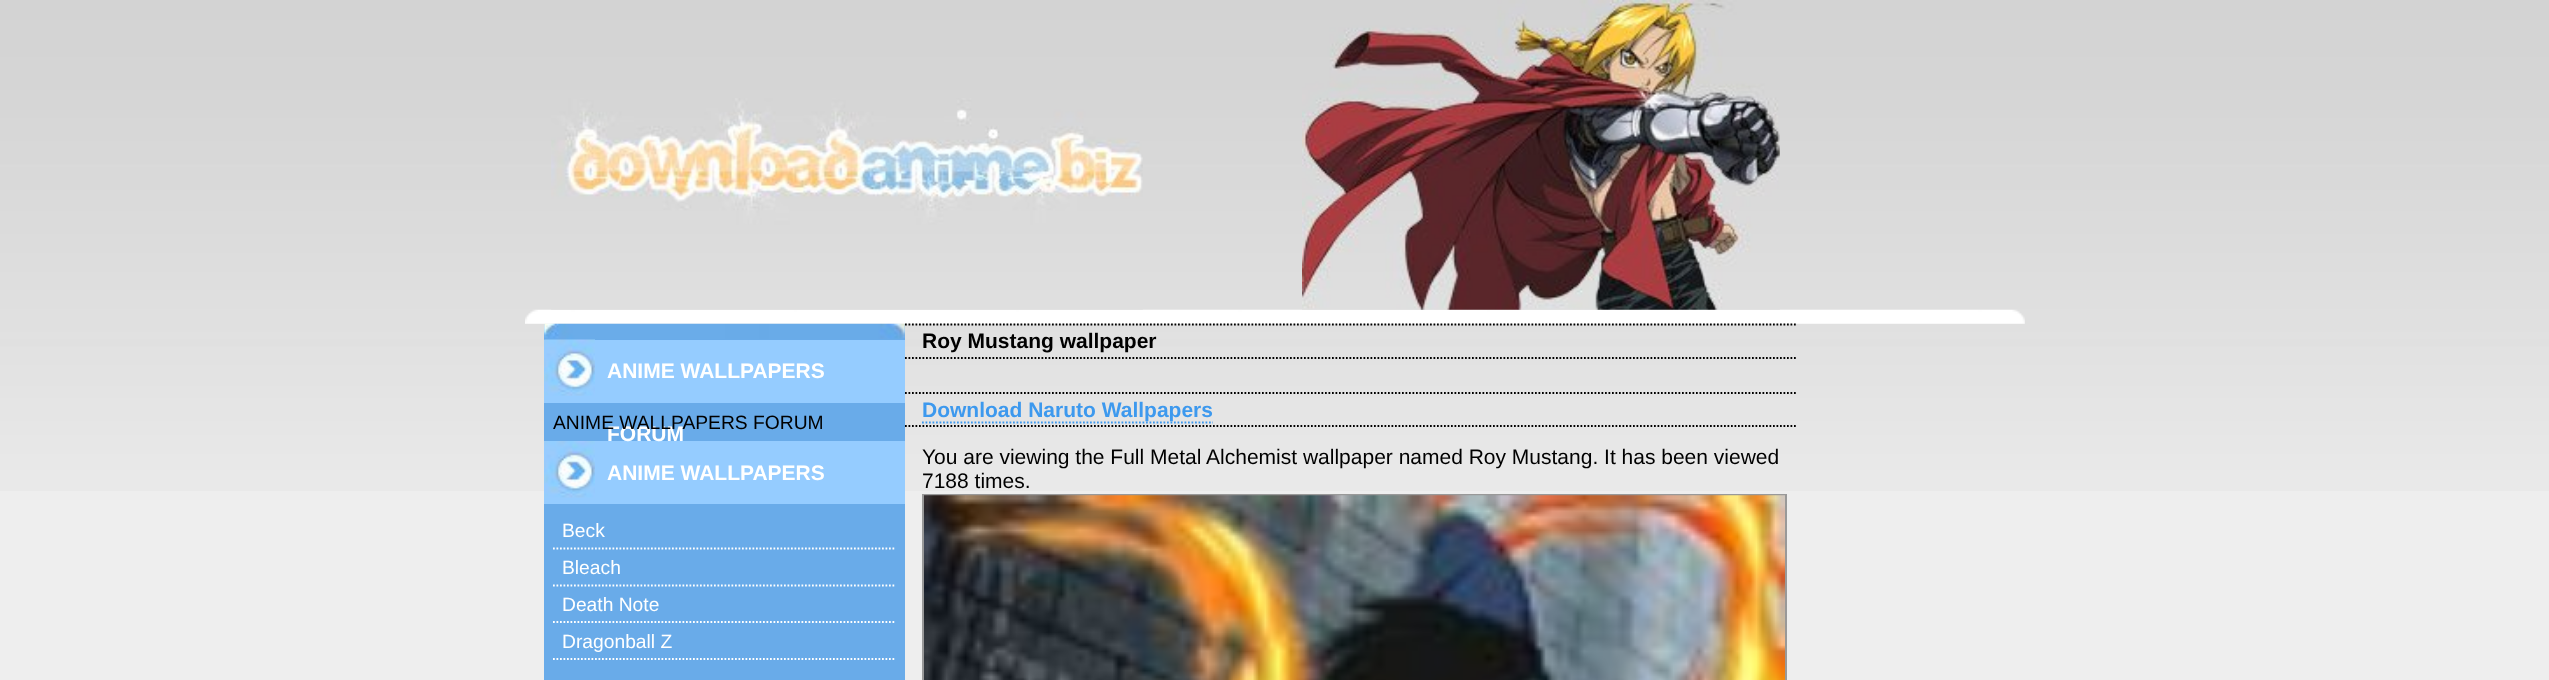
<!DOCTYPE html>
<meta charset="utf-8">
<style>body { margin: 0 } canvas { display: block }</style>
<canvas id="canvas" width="2549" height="680"></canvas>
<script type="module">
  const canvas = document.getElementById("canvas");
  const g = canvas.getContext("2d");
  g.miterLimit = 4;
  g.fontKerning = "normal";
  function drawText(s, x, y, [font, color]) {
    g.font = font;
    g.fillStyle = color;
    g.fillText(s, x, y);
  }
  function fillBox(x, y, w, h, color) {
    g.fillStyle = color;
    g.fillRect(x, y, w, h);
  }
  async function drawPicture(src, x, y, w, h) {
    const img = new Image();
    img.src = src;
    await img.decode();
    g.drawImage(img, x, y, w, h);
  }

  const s1 = ["bold 21px Liberation Sans", "#FFFFFF"];
  const s2 = ["19.25px Liberation Sans", "#000000"];
  const s3 = ["19.25px Liberation Sans", "#FFFFFF"];
  const s4 = ["bold 21px Liberation Sans", "#000000"];
  const s5 = ["bold 21px Liberation Sans", "#3D99EE"];
  const s6 = ["21px Liberation Sans", "#000000"];

  fillBox(0, 0, 2549, 680, "#EEEEEE");
  await drawPicture("pic1.png", 0, 0, 2549, 491);
  await drawPicture("pic4.png", 525, 309, 1500, 15);
  await drawPicture("pic2.png", 551, 98, 592, 212);
  await drawPicture("pic3.png", 1302, 0, 478, 310);
  fillBox(544, 324, 361, 356, "#69ABE9");
  await drawPicture("pic5.png", 544, 323, 361, 16);
  fillBox(544, 340, 361, 63, "#95CCFF");
  await drawPicture("pic6.png", 544, 339, 51, 57);
  drawText("ANIME WALLPAPERS", 607, 378, s1);
  fillBox(544, 441, 361, 63, "#95CCFF");
  drawText("FORUM", 607, 441, s1);
  drawText("ANIME WALLPAPERS FORUM", 553, 429, s2);
  await drawPicture("pic7.png", 544, 441, 51, 57);
  drawText("ANIME WALLPAPERS", 607, 480, s1);
  g.beginPath();
  g.moveTo(553, 548.5);
  g.lineTo(896, 548.5);
  g.strokeStyle = "#FFFFFF";
  g.lineWidth = 1.8;
  g.setLineDash([1.75, 1.75]);
  g.stroke();
  drawText("Beck", 562, 537, s3);
  g.beginPath();
  g.moveTo(553, 585.5);
  g.lineTo(896, 585.5);
  g.stroke();
  drawText("Bleach", 562, 574, s3);
  g.beginPath();
  g.moveTo(553, 622);
  g.lineTo(896, 622);
  g.stroke();
  drawText("Death Note", 562, 611, s3);
  g.beginPath();
  g.moveTo(553, 659);
  g.lineTo(896, 659);
  g.stroke();
  drawText("Dragonball Z", 562, 648, s3);
  g.beginPath();
  g.moveTo(905, 324.5);
  g.lineTo(1797, 324.5);
  g.strokeStyle = "#000000";
  g.stroke();
  g.beginPath();
  g.moveTo(905, 358);
  g.lineTo(1797, 358);
  g.stroke();
  drawText("Roy Mustang wallpaper", 922, 348, s4);
  g.beginPath();
  g.moveTo(905, 393);
  g.lineTo(1797, 393);
  g.stroke();
  g.beginPath();
  g.moveTo(905, 426);
  g.lineTo(1797, 426);
  g.stroke();
  g.beginPath();
  g.moveTo(922, 422.5);
  g.lineTo(1213, 422.5);
  g.strokeStyle = "#3D99EE";
  g.stroke();
  drawText("Download Naruto Wallpapers", 922, 417, s5);
  drawText("You are viewing the Full Metal Alchemist wallpaper named Roy Mustang. It has been viewed", 922, 464, s6);
  drawText("7188 times.", 922, 488, s6);
  g.strokeStyle = "#999999";
  g.lineWidth = 2;
  g.setLineDash([]);
  g.strokeRect(923, 495, 863, 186);
  await drawPicture("pic8.png", 924, 495, 861, 185);
</script>
